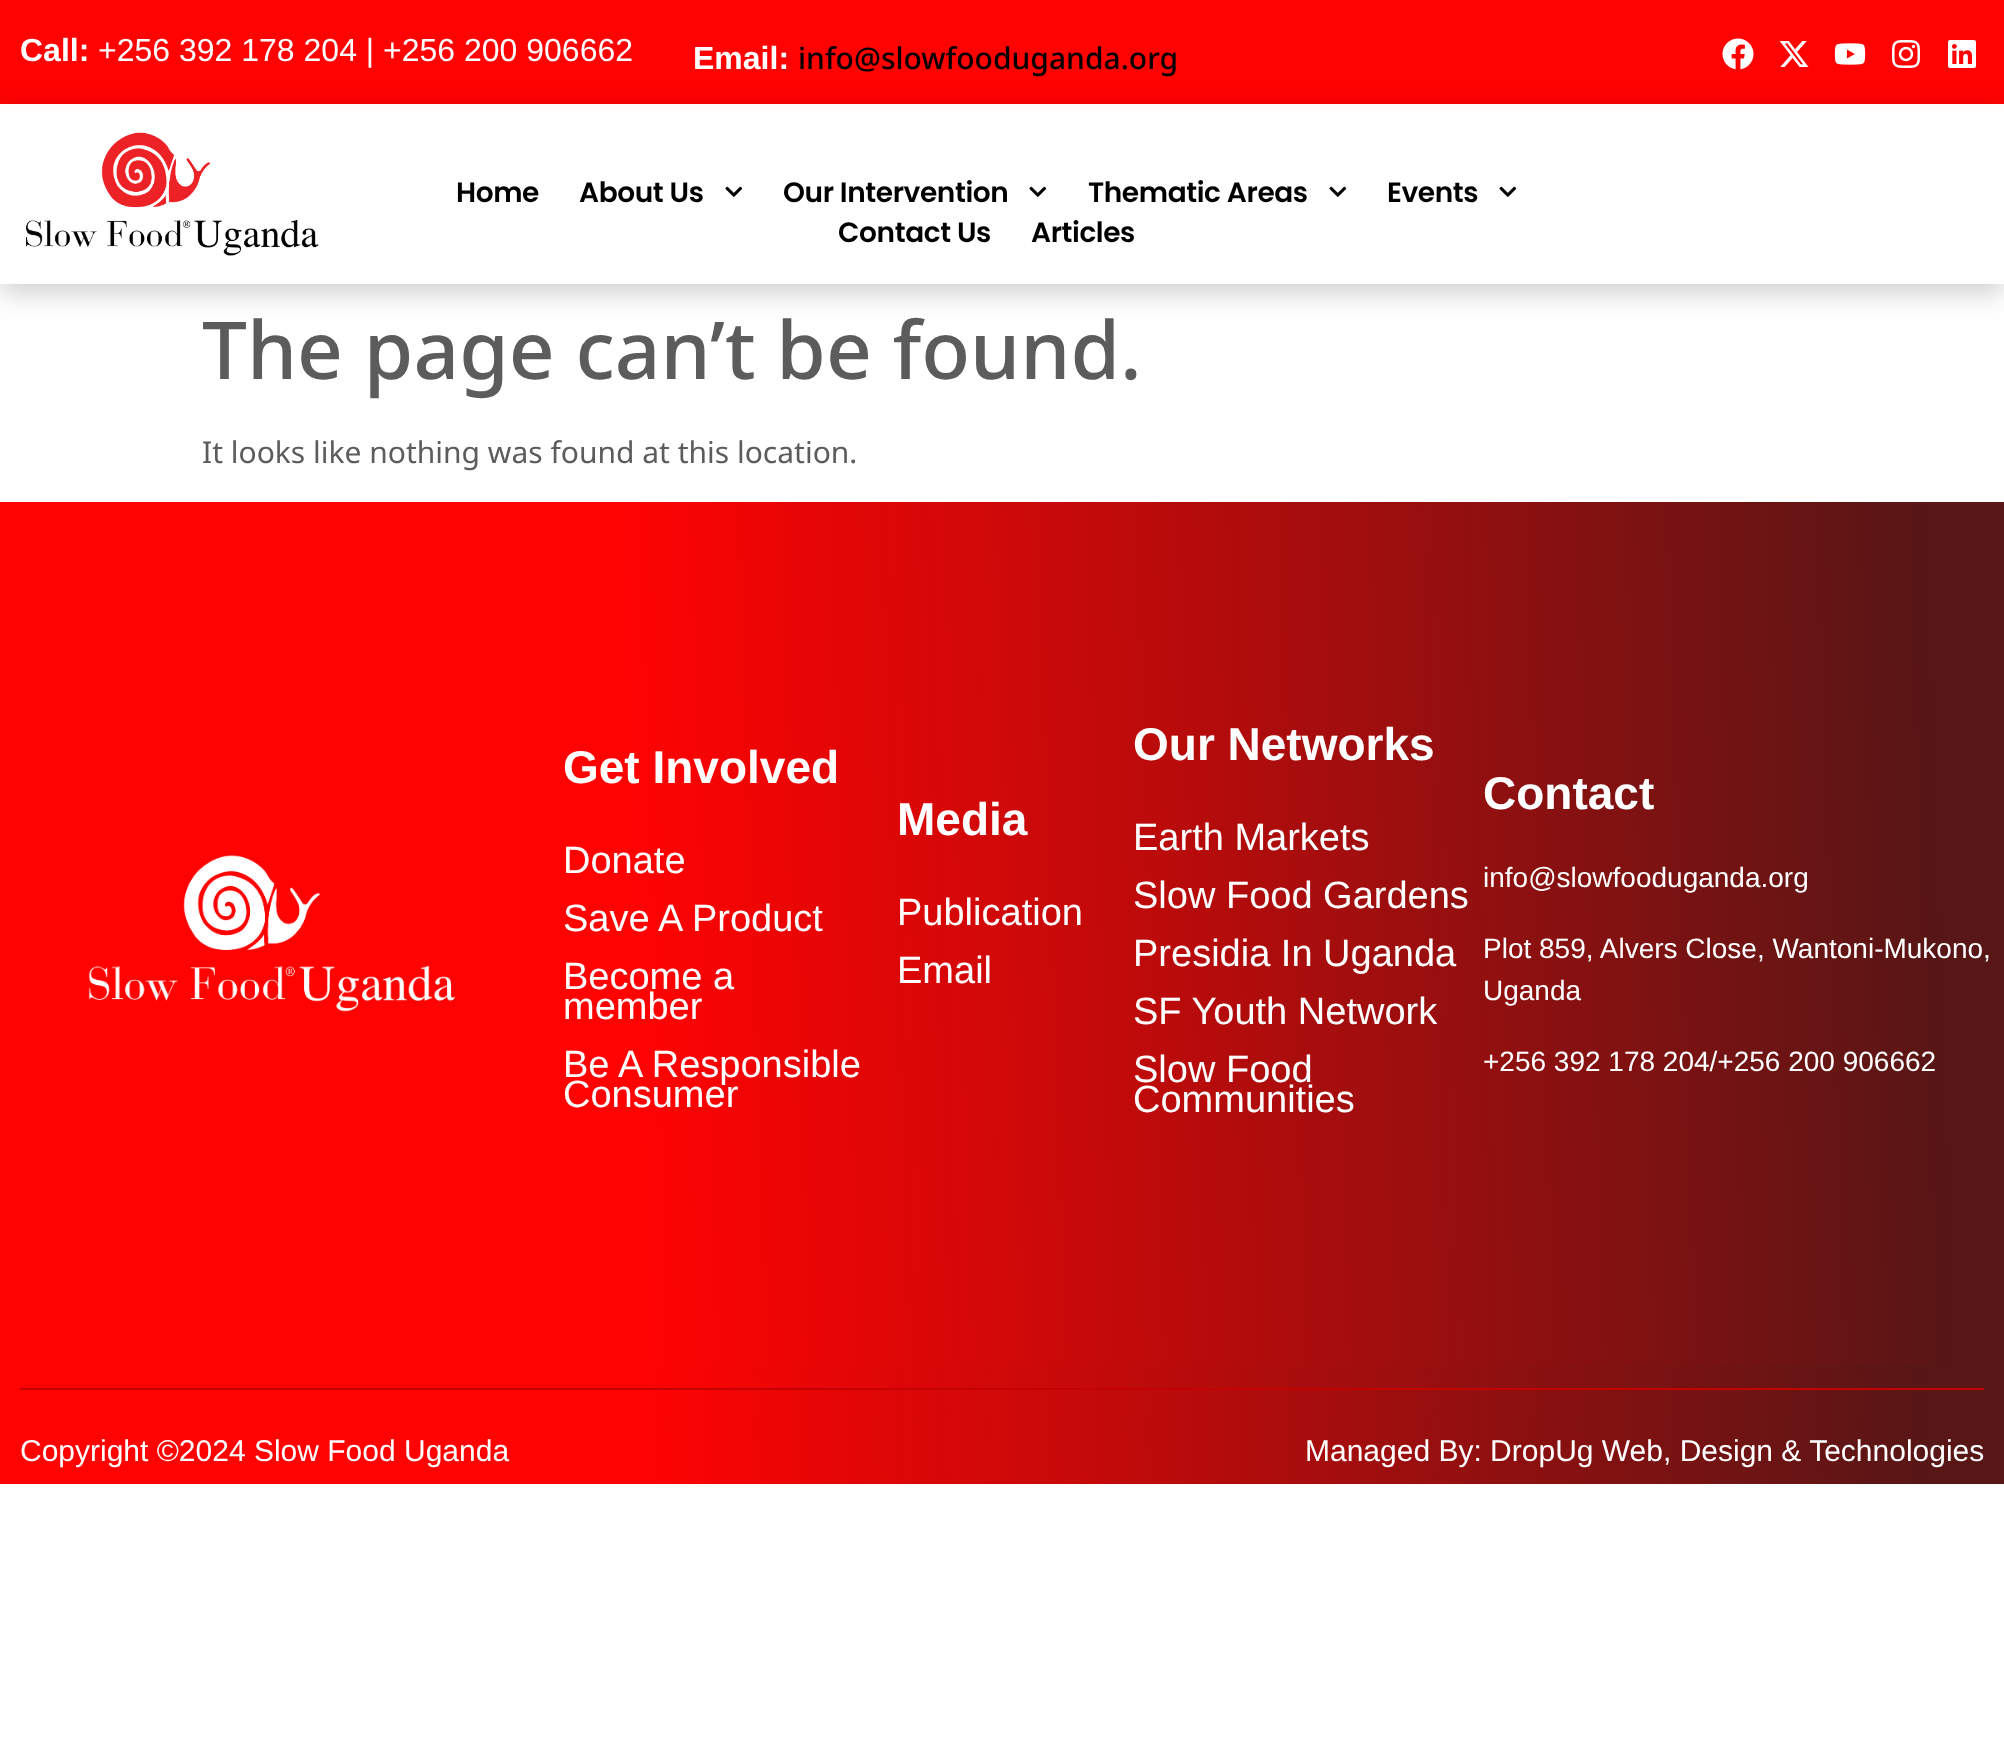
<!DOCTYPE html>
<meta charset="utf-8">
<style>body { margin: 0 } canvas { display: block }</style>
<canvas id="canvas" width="2004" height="1745"></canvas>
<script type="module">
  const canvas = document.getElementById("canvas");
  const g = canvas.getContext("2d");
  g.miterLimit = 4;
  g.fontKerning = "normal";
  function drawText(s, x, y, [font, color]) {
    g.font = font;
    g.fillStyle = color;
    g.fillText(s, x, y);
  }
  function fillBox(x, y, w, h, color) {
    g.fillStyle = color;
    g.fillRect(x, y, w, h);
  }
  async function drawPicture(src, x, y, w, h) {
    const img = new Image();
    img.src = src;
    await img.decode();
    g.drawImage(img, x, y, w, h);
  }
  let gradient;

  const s1 = ["bold 32px Liberation Sans", "#FFFFFF"];
  const s2 = ["32px Liberation Sans", "#FFFFFF"];
  const s3 = ["500 30px Noto Sans", "#000000"];
  const s4 = ["600 28px Poppins", "#000000"];
  const s5 = ["500 80px Noto Sans", "#5C5C5C"];
  const s6 = ["30px Noto Sans", "#5C5C5C"];
  const s7 = ["bold 46px Liberation Sans", "#FFFFFF"];
  const s8 = ["38px Liberation Sans", "#FFFFFF"];
  const s9 = ["28px Liberation Sans", "#FFFFFF"];
  const s10 = ["30px Liberation Sans", "#FFFFFF"];

  fillBox(0, 0, 2004, 1745, "#FFFFFF");
  fillBox(0, 0, 2004, 104, "#FF0303");
  fillBox(0, 104, 2004, 6, "#FFFCFC");
  drawText("Call:", 20, 61, s1);
  drawText("+256 392 178 204 | +256 200 906662", 98, 61, s2);
  drawText("Email:", 693, 69, s1);
  drawText("info@slowfooduganda.org", 798, 69, s3);
  await drawPicture("pic1.png", 1722, 38, 32, 32);
  await drawPicture("pic2.png", 1779, 41, 30, 26);
  await drawPicture("pic3.png", 1834, 43, 32, 22);
  await drawPicture("pic4.png", 1892, 40, 28, 28);
  await drawPicture("pic5.png", 1948, 40, 28, 28);
  g.save();
  g.beginPath();
  g.moveTo(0, 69);
  g.lineTo(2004, 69);
  g.lineTo(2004, 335);
  g.lineTo(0, 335);
  g.closePath();
  g.moveTo(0, 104);
  g.lineTo(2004, 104);
  g.lineTo(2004, 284);
  g.lineTo(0, 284);
  g.closePath();
  g.clip("evenodd");
  g.fillStyle = "rgba(0, 0, 0, 0.2)";
  g.filter = "blur(14px)";
  g.beginPath();
  g.rect(0, 112, 2004, 180);
  g.fill();
  g.filter = "none";
  g.restore();
  await drawPicture("pic6.png", 26, 132, 293, 124);
  g.letterSpacing = "-0.4px";
  drawText("Home", 456, 202, s4);
  drawText("About Us", 579, 202, s4);
  await drawPicture("pic7.png", 725, 186, 17, 11);
  drawText("Our Intervention", 783, 202, s4);
  await drawPicture("pic8.png", 1029, 186, 18, 11);
  drawText("Thematic Areas", 1088, 202, s4);
  await drawPicture("pic8.png", 1329, 186, 18, 11);
  drawText("Events", 1387, 202, s4);
  await drawPicture("pic8.png", 1499, 186, 18, 11);
  drawText("Contact Us", 838, 242, s4);
  drawText("Articles", 1031, 242, s4);
  g.letterSpacing = "0px";
  drawText("The page can’t be found.", 202, 379, s5);
  drawText("It looks like nothing was found at this location.", 202, 463, s6);
  gradient = g.createLinearGradient(-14, 968, 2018, 898);
  gradient.addColorStop(0.32, "#FF0303");
  gradient.addColorStop(0.96, "#581616");
  g.fillStyle = gradient;
  g.fillRect(0, 502, 2004, 862);
  await drawPicture("pic9.png", 88, 855, 368, 157);
  drawText("Get Involved", 563, 783, s7);
  drawText("Donate", 563, 873, s8);
  drawText("Save A Product", 563, 931, s8);
  drawText("Become a", 563, 989, s8);
  drawText("member", 563, 1019, s8);
  drawText("Be A Responsible", 563, 1077, s8);
  drawText("Consumer", 563, 1107, s8);
  drawText("Media", 897, 835, s7);
  drawText("Publication", 897, 925, s8);
  drawText("Email", 897, 983, s8);
  drawText("Our Networks", 1133, 760, s7);
  drawText("Earth Markets", 1133, 850, s8);
  drawText("Slow Food Gardens", 1133, 908, s8);
  drawText("Presidia In Uganda", 1133, 966, s8);
  drawText("SF Youth Network", 1133, 1024, s8);
  drawText("Slow Food", 1133, 1082, s8);
  drawText("Communities", 1133, 1112, s8);
  drawText("Contact", 1483, 809, s7);
  drawText("info@slowfooduganda.org", 1483, 887, s9);
  drawText("Plot 859, Alvers Close, Wantoni-Mukono,", 1483, 958, s9);
  drawText("Uganda", 1483, 1000, s9);
  drawText("+256 392 178 204/+256 200 906662", 1483, 1071, s9);
  gradient = g.createLinearGradient(0.3, 1424, 2004, 1354);
  gradient.addColorStop(0.32, "#FF0303");
  gradient.addColorStop(0.96, "#581616");
  g.fillStyle = gradient;
  g.fillRect(0, 1364, 2004, 50);
  fillBox(20, 1388, 1964, 2, "#C40202");
  gradient = g.createLinearGradient(0, 1484, 2004, 1414);
  gradient.addColorStop(0.32, "#FF0303");
  gradient.addColorStop(0.96, "#581616");
  g.fillStyle = gradient;
  g.fillRect(0, 1414, 2004, 70);
  drawText("Copyright ©2024 Slow Food Uganda", 20, 1461, s10);
  drawText("Managed By: DropUg Web, Design & Technologies", 1305, 1461, s10);
</script>
